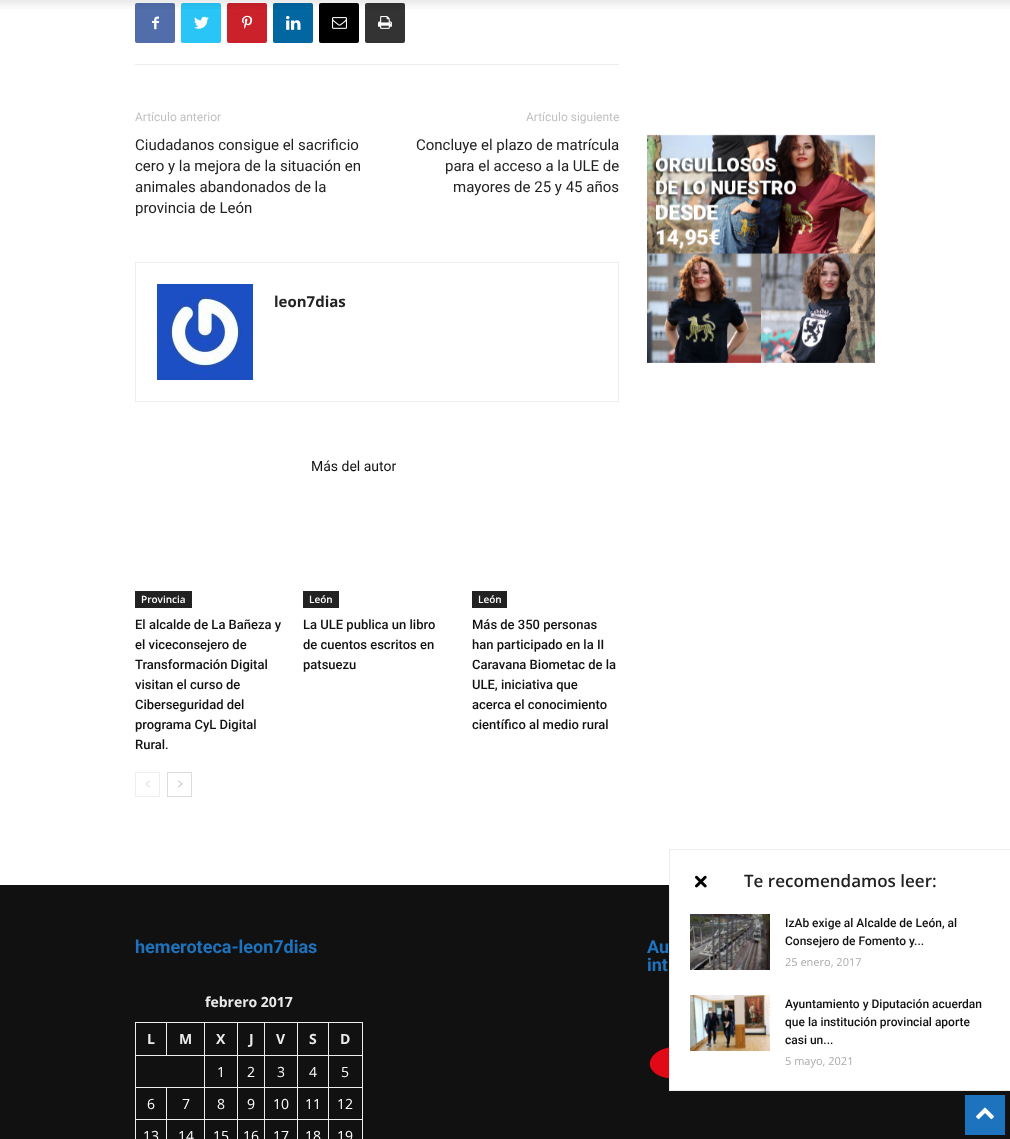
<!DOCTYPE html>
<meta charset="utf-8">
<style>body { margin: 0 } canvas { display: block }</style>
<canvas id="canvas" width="1010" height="1139"></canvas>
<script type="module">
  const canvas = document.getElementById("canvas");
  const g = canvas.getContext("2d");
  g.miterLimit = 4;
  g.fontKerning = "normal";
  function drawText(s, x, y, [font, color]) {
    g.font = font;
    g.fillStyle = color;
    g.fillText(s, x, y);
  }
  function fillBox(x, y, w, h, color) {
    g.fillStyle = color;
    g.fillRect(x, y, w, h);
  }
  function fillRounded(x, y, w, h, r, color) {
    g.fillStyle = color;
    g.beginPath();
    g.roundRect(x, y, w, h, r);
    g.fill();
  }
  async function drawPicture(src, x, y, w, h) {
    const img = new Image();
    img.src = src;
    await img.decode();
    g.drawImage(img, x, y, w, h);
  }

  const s1 = ["12px Roboto", "#C1C1C1"];
  const s2 = ["15px Roboto", "#222222"];
  const s3 = ["bold 15px Open Sans", "#222222"];
  const s4 = ["14px Roboto", "#111111"];
  const s5 = ["600 10px Open Sans", "#FFFFFF"];
  const s6 = ["500 13px Roboto", "#111111"];
  const s7 = ["bold 18px Roboto", "#1E73BE"];
  const s8 = ["bold 14px Open Sans", "#EAEAEA"];
  const s9 = ["14px Open Sans", "#FFFFFF"];
  const s10 = ["600 17px Open Sans", "#222222"];
  const s11 = ["500 12px Roboto", "#111111"];
  const s12 = ["11px Open Sans", "#AAAAAA"];

  fillBox(0, 0, 1010, 1139, "#FFFFFF");
  fillRounded(135, 3, 40, 40, 2, "#516EAB");
  fillRounded(181, 3, 40, 40, 2, "#29C5F6");
  fillRounded(227, 3, 40, 40, 2, "#CA212A");
  fillRounded(273, 3, 40, 40, 2, "#0266A0");
  fillRounded(319, 3, 40, 40, 2, "#000000");
  fillRounded(365, 3, 40, 40, 2, "#333333");
  await drawPicture("pic1.png", 0, 0, 1010, 9);
  fillBox(135, 64, 484, 1, "#EDEDED");
  await drawPicture("pic2.png", 152, 16, 7, 14);
  await drawPicture("pic3.png", 194, 16, 15, 13);
  await drawPicture("pic4.png", 242, 15, 11, 14);
  await drawPicture("pic5.png", 286, 16, 15, 14);
  await drawPicture("pic6.png", 332, 17, 15, 12);
  await drawPicture("pic7.png", 378, 16, 14, 13);
  drawText("Artículo anterior", 135, 121, s1);
  drawText("Ciudadanos consigue el sacrificio", 135, 150, s2);
  drawText("cero y la mejora de la situación en", 135, 171, s2);
  drawText("animales abandonados de la", 135, 192, s2);
  drawText("provincia de León", 135, 213, s2);
  drawText("Artículo siguiente", 526, 121, s1);
  drawText("Concluye el plazo de matrícula", 416, 150, s2);
  drawText("para el acceso a la ULE de", 445, 171, s2);
  drawText("mayores de 25 y 45 años", 453, 192, s2);
  g.strokeStyle = "#EDEDED";
  g.strokeRect(135.5, 262.5, 483, 139);
  await drawPicture("pic8.png", 157, 284, 96, 96);
  drawText("leon7dias", 274, 307, s3);
  drawText("Más del autor", 311, 471, s4);
  fillBox(135, 591, 57, 17, "#222222");
  drawText("Provincia", 141, 603, s5);
  drawText("El alcalde de La Bañeza y", 135, 629, s6);
  drawText("el viceconsejero de", 135, 649, s6);
  drawText("Transformación Digital", 135, 669, s6);
  drawText("visitan el curso de", 135, 689, s6);
  drawText("Ciberseguridad del", 135, 709, s6);
  drawText("programa CyL Digital", 135, 729, s6);
  drawText("Rural.", 135, 749, s6);
  fillBox(303, 591, 36, 17, "#222222");
  drawText("León", 309, 603, s5);
  drawText("La ULE publica un libro", 303, 629, s6);
  drawText("de cuentos escritos en", 303, 649, s6);
  drawText("patsuezu", 303, 669, s6);
  fillBox(472, 591, 35, 17, "#222222");
  drawText("León", 478, 603, s5);
  drawText("Más de 350 personas", 472, 629, s6);
  drawText("han participado en la II", 472, 649, s6);
  drawText("Caravana Biometac de la", 472, 669, s6);
  drawText("ULE, iniciativa que", 472, 689, s6);
  drawText("acerca el conocimiento", 472, 709, s6);
  drawText("científico al medio rural", 472, 729, s6);
  g.strokeStyle = "#EEEEEE";
  g.strokeRect(135.5, 772.5, 24, 24);
  await drawPicture("pic9.png", 145, 780, 5, 8);
  g.strokeStyle = "#DCDCDC";
  g.strokeRect(167.5, 772.5, 24, 24);
  await drawPicture("pic10.png", 178, 780, 5, 8);
  await drawPicture("pic11.png", 647, 134, 228, 229);
  fillBox(0, 885, 1010, 254, "#111111");
  drawText("hemeroteca-leon7dias", 135, 953, s7);
  drawText("febrero 2017", 205, 1007, s8);
  fillBox(328, 1022, 35, 1, "#EDEDED");
  fillBox(328, 1055, 35, 1, "#EDEDED");
  fillBox(328, 1087, 35, 1, "#EDEDED");
  fillBox(328, 1119, 35, 1, "#EDEDED");
  fillBox(328, 1119, 1, 20, "#EDEDED");
  fillBox(297, 1119, 32, 1, "#EDEDED");
  fillBox(328, 1087, 1, 33, "#EDEDED");
  fillBox(297, 1087, 32, 1, "#EDEDED");
  fillBox(328, 1055, 1, 33, "#EDEDED");
  fillBox(297, 1055, 32, 1, "#EDEDED");
  fillBox(328, 1022, 1, 34, "#EDEDED");
  fillBox(297, 1022, 32, 1, "#EDEDED");
  fillBox(297, 1119, 1, 20, "#EDEDED");
  fillBox(264, 1119, 34, 1, "#EDEDED");
  fillBox(297, 1087, 1, 33, "#EDEDED");
  fillBox(264, 1087, 34, 1, "#EDEDED");
  fillBox(297, 1055, 1, 33, "#EDEDED");
  fillBox(264, 1055, 34, 1, "#EDEDED");
  fillBox(297, 1022, 1, 34, "#EDEDED");
  fillBox(264, 1022, 34, 1, "#EDEDED");
  fillBox(264, 1119, 1, 20, "#EDEDED");
  fillBox(237, 1119, 28, 1, "#EDEDED");
  fillBox(264, 1087, 1, 33, "#EDEDED");
  fillBox(237, 1087, 28, 1, "#EDEDED");
  fillBox(264, 1055, 1, 33, "#EDEDED");
  fillBox(237, 1055, 28, 1, "#EDEDED");
  fillBox(264, 1022, 1, 34, "#EDEDED");
  fillBox(237, 1022, 28, 1, "#EDEDED");
  fillBox(237, 1119, 1, 20, "#EDEDED");
  fillBox(204, 1119, 34, 1, "#EDEDED");
  fillBox(237, 1087, 1, 33, "#EDEDED");
  fillBox(204, 1087, 34, 1, "#EDEDED");
  fillBox(237, 1055, 1, 33, "#EDEDED");
  fillBox(204, 1055, 34, 1, "#EDEDED");
  fillBox(237, 1022, 1, 34, "#EDEDED");
  fillBox(204, 1022, 34, 1, "#EDEDED");
  fillBox(204, 1119, 1, 20, "#EDEDED");
  fillBox(166, 1119, 39, 1, "#EDEDED");
  fillBox(204, 1087, 1, 33, "#EDEDED");
  fillBox(166, 1087, 39, 1, "#EDEDED");
  fillBox(204, 1055, 1, 33, "#EDEDED");
  fillBox(135, 1055, 70, 1, "#EDEDED");
  fillBox(204, 1022, 1, 34, "#EDEDED");
  fillBox(166, 1022, 39, 1, "#EDEDED");
  fillBox(166, 1022, 1, 34, "#EDEDED");
  fillBox(135, 1022, 32, 1, "#EDEDED");
  fillBox(166, 1119, 1, 20, "#EDEDED");
  fillBox(135, 1119, 32, 1, "#EDEDED");
  fillBox(166, 1087, 1, 33, "#EDEDED");
  fillBox(135, 1087, 32, 1, "#EDEDED");
  fillBox(135, 1119, 1, 20, "#EDEDED");
  fillBox(135, 1087, 1, 33, "#EDEDED");
  fillBox(135, 1055, 1, 33, "#EDEDED");
  fillBox(135, 1022, 1, 34, "#EDEDED");
  drawText("L", 147, 1044, s8);
  drawText("M", 179, 1044, s8);
  drawText("X", 216, 1044, s8);
  drawText("J", 249, 1044, s8);
  drawText("V", 276, 1044, s8);
  drawText("S", 309, 1044, s8);
  fillBox(362, 1119, 1, 20, "#EDEDED");
  fillBox(362, 1087, 1, 33, "#EDEDED");
  fillBox(362, 1055, 1, 33, "#EDEDED");
  fillBox(362, 1022, 1, 34, "#EDEDED");
  drawText("D", 340, 1044, s8);
  drawText("1", 217, 1077, s9);
  drawText("2", 247, 1077, s9);
  drawText("3", 277, 1077, s9);
  drawText("4", 309, 1077, s9);
  drawText("5", 341, 1077, s9);
  drawText("6", 147, 1109, s9);
  drawText("7", 182, 1109, s9);
  drawText("8", 217, 1109, s9);
  drawText("9", 247, 1109, s9);
  drawText("10", 273, 1109, s9);
  drawText("11", 305, 1109, s9);
  drawText("12", 337, 1109, s9);
  drawText("13", 143, 1141, s9);
  drawText("14", 178, 1141, s9);
  drawText("15", 213, 1141, s9);
  drawText("16", 243, 1141, s9);
  drawText("17", 273, 1141, s9);
  drawText("18", 305, 1141, s9);
  drawText("19", 337, 1141, s9);
  drawText("Au", 647, 953, s7);
  drawText("int", 647, 971, s7);
  await drawPicture("pic12.png", 649, 1047, 20, 32);
  fillBox(670, 885, 340, 205, "#FFFFFF");
  fillBox(669, 849, 341, 1, "#EDEDED");
  fillBox(669, 1090, 341, 1, "#EDEDED");
  fillBox(669, 849, 1, 242, "#EDEDED");
  await drawPicture("pic13.png", 695, 875, 12, 13);
  drawText("Te recomendamos leer:", 744, 887, s10);
  await drawPicture("pic14.png", 690, 914, 80, 56);
  drawText("IzAb exige al Alcalde de León, al", 785, 927, s11);
  drawText("Consejero de Fomento y...", 785, 945, s11);
  drawText("25 enero, 2017", 785, 966, s12);
  await drawPicture("pic15.png", 690, 995, 80, 56);
  drawText("Ayuntamiento y Diputación acuerdan", 785, 1008, s11);
  drawText("que la institución provincial aporte", 785, 1026, s11);
  drawText("casi un...", 785, 1044, s11);
  drawText("5 mayo, 2021", 785, 1065, s12);
  fillBox(965, 1095, 40, 40, "#1E73BE");
  await drawPicture("pic16.png", 976, 1107, 18, 13);
</script>
